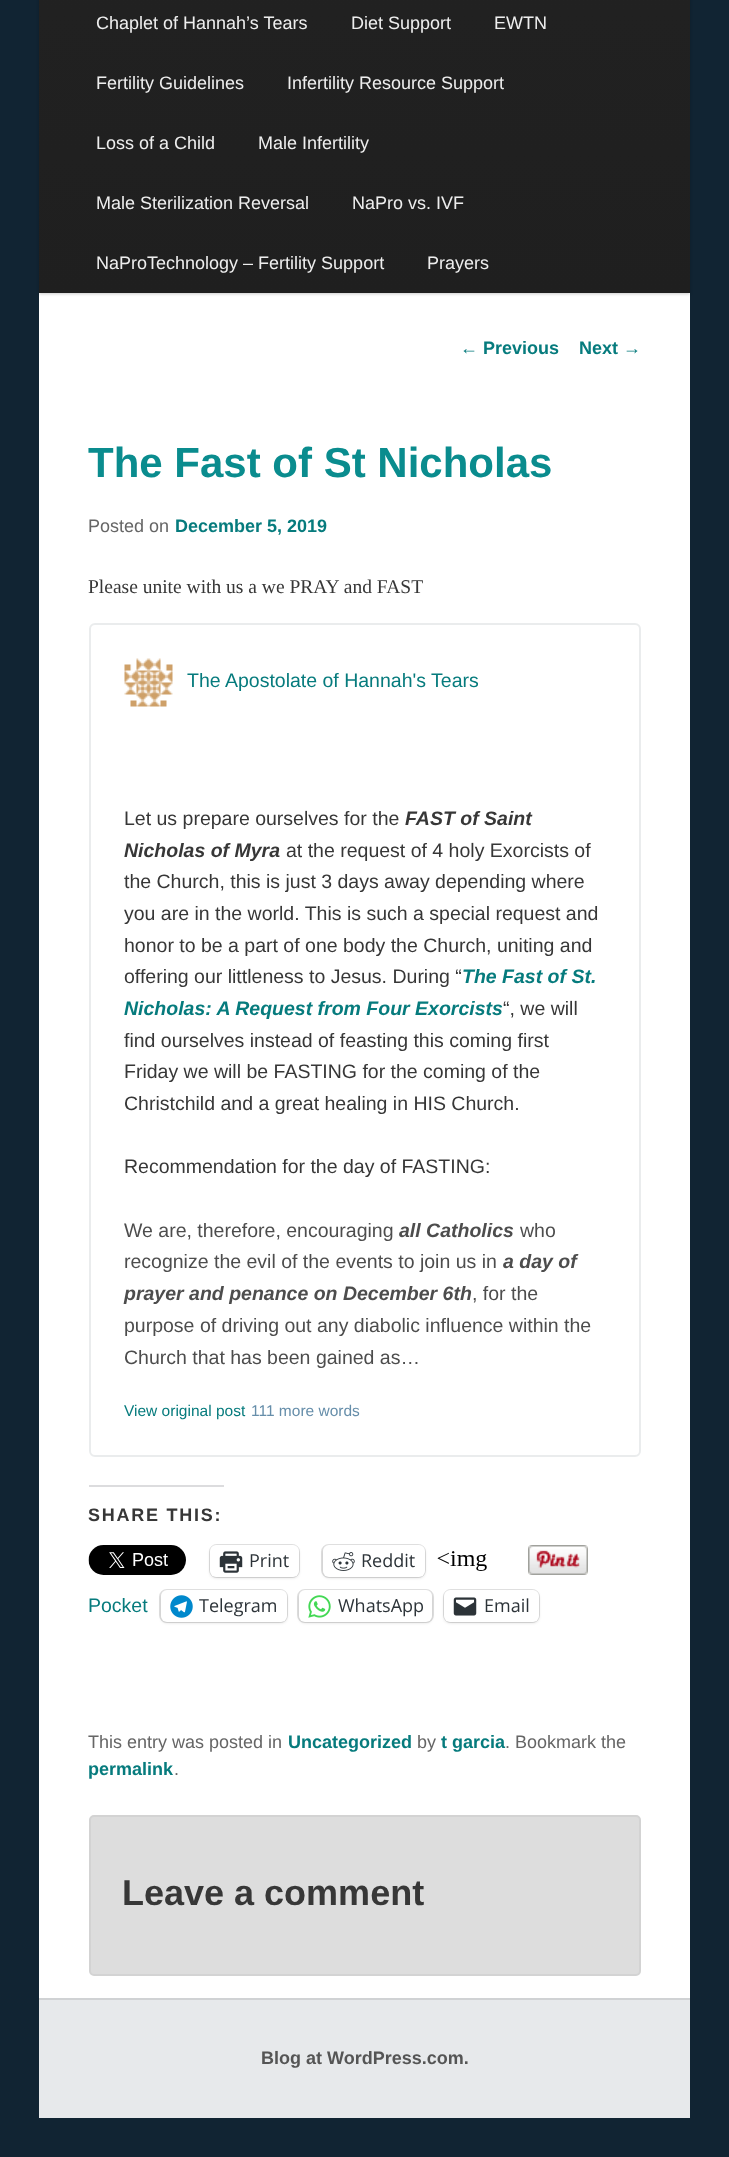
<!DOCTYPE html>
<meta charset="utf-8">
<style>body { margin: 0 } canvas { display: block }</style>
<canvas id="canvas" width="729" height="2157"></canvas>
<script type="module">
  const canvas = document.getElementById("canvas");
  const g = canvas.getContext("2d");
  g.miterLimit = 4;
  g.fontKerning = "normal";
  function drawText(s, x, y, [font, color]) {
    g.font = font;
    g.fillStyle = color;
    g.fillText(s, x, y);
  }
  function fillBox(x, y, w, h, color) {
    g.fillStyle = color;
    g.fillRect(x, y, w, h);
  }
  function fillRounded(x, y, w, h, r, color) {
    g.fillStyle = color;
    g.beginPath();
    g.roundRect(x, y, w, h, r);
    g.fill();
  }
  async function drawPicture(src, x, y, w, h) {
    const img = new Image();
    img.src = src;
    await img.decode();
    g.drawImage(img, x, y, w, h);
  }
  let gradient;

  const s1 = ["18px Liberation Sans", "#EEEEEE"];
  const s2 = ["18px Liberation Sans", "#067B7D"];
  const s3 = ["bold 18px Liberation Sans", "#067B7D"];
  const s4 = ["bold 42px Liberation Sans", "#0A8C8E"];
  const s5 = ["18px Liberation Sans", "#666666"];
  const s6 = ["19.5px Liberation Serif", "#373737"];
  const s7 = ["19.5px Liberation Sans", "#067B7D"];
  const s8 = ["19.5px Liberation Sans", "#373737"];
  const s9 = ["italic bold 19.5px Liberation Sans", "#373737"];
  const s10 = ["italic bold 19.5px Liberation Sans", "#067B7D"];
  const s11 = ["19.5px Liberation Sans", "#4D4D4D"];
  const s12 = ["italic bold 19.5px Liberation Sans", "#4D4D4D"];
  const s13 = ["15.5px Liberation Sans", "#067B7D"];
  const s14 = ["15.5px Liberation Sans", "#668EAA"];
  const s15 = ["bold 18px Liberation Sans", "#373737"];
  const s16 = ["18px Open Sans", "#2C3338"];
  const s17 = ["bold 36px Liberation Sans", "#373737"];
  const s18 = ["bold 18px Liberation Sans", "#555555"];

  fillBox(0, 0, 729, 2157, "#112433");
  fillBox(39, 293, 651, 1705, "#FFFFFF");
  g.fillStyle = "rgba(0, 0, 0, 0.2)";
  g.filter = "blur(1.5px)";
  g.beginPath();
  g.rect(39, -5, 651, 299);
  g.fill();
  g.filter = "none";
  gradient = g.createLinearGradient(364, -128, 365, 293);
  gradient.addColorStop(0, "#222222");
  gradient.addColorStop(1, "#1F1F1F");
  g.fillStyle = gradient;
  g.fillRect(39, 0, 651, 293);
  drawText("Chaplet of Hannah’s Tears", 96, 29, s1);
  drawText("Diet Support", 351, 29, s1);
  drawText("EWTN", 494, 29, s1);
  drawText("Fertility Guidelines", 96, 89, s1);
  drawText("Infertility Resource Support", 287, 89, s1);
  drawText("Loss of a Child", 96, 149, s1);
  drawText("Male Infertility", 258, 149, s1);
  drawText("Male Sterilization Reversal", 96, 209, s1);
  drawText("NaPro vs. IVF", 352, 209, s1);
  drawText("NaProTechnology – Fertility Support", 96, 269, s1);
  drawText("Prayers", 427, 269, s1);
  drawText("←", 460, 354, s2);
  drawText("Previous", 483, 354, s3);
  drawText("Next", 579, 354, s3);
  drawText("→", 623, 354, s2);
  drawText("The Fast of St Nicholas", 88, 477, s4);
  drawText("Posted on", 88, 532, s5);
  drawText("December 5, 2019", 175, 532, s3);
  drawText("Please unite with us a we PRAY and FAST", 88, 593, s6);
  g.beginPath();
  g.roundRect(90, 624, 550, 832, 5);
  g.strokeStyle = "rgba(46, 68, 83, 0.1)";
  g.lineWidth = 2;
  g.stroke();
  await drawPicture("pic1.png", 124, 658, 49, 49);
  drawText("The Apostolate of Hannah's Tears", 187, 687, s7);
  drawText("Let us prepare ourselves for the", 124, 825, s8);
  drawText("FAST of Saint", 405, 825, s9);
  drawText("Nicholas of Myra", 124, 857, s9);
  drawText("at the request of 4 holy Exorcists of", 286, 857, s8);
  drawText("the Church, this is just 3 days away depending where", 124, 888, s8);
  drawText("you are in the world. This is such a special request and", 124, 920, s8);
  drawText("honor to be a part of one body the Church, uniting and", 124, 952, s8);
  drawText("offering our littleness to Jesus. During “", 124, 983, s8);
  drawText("The Fast of St.", 462, 983, s10);
  drawText("Nicholas: A Request from Four Exorcists", 124, 1015, s10);
  drawText("“, we will", 503, 1015, s8);
  drawText("find ourselves instead of feasting this coming first", 124, 1047, s8);
  drawText("Friday we will be FASTING for the coming of the", 124, 1078, s8);
  drawText("Christchild and a great healing in HIS Church.", 124, 1110, s8);
  drawText("Recommendation for the day of FASTING:", 124, 1173, s8);
  drawText("We are, therefore, encouraging", 124, 1237, s11);
  drawText("all Catholics", 399, 1237, s12);
  drawText("who", 520, 1237, s11);
  drawText("recognize the evil of the events to join us in", 124, 1268, s11);
  drawText("a day of", 503, 1268, s12);
  drawText("prayer and penance on December 6th", 124, 1300, s12);
  drawText(", for the", 472, 1300, s11);
  drawText("purpose of driving out any diabolic influence within the", 124, 1332, s11);
  drawText("Church that has been gained as…", 124, 1364, s11);
  drawText("View original post", 124, 1416, s13);
  drawText("111 more words", 251, 1416, s14);
  fillBox(89, 1485, 135, 2, "#DCDCDE");
  g.letterSpacing = "1.75px";
  drawText("SHARE THIS:", 88, 1521, s15);
  await drawPicture("pic2.png", 88, 1545, 98, 30);
  g.beginPath();
  g.roundRect(210, 1545, 89, 32, 7);
  g.strokeStyle = "#E0E0E0";
  g.stroke();
  g.fillStyle = "rgba(0, 0, 0, 0.12)";
  g.filter = "blur(1.5px)";
  g.beginPath();
  g.roundRect(210, 1547, 89, 31, 6);
  g.fill();
  g.filter = "none";
  fillRounded(210, 1545, 89, 32, 6, "#FFFFFF");
  await drawPicture("pic3.png", 219, 1551, 24, 22);
  g.letterSpacing = "0px";
  drawText("Print", 249, 1567, s16);
  g.beginPath();
  g.roundRect(322, 1545, 103, 32, 7);
  g.stroke();
  g.fillStyle = "rgba(0, 0, 0, 0.12)";
  g.filter = "blur(1.5px)";
  g.beginPath();
  g.roundRect(323, 1547, 102, 31, 6);
  g.fill();
  g.filter = "none";
  fillRounded(323, 1545, 102, 32, 6, "#FFFFFF");
  await drawPicture("pic4.png", 332, 1552, 23, 19);
  drawText("Reddit", 361, 1567, s16);
  await drawPicture("pic5.png", 437, 1551, 50, 20);
  await drawPicture("pic6.png", 528, 1545, 60, 30);
  drawText("Pocket", 88, 1612, s7);
  g.beginPath();
  g.roundRect(160, 1590, 127, 32, 7);
  g.stroke();
  g.fillStyle = "rgba(0, 0, 0, 0.12)";
  g.filter = "blur(1.5px)";
  g.beginPath();
  g.roundRect(161, 1592, 126, 31, 6);
  g.fill();
  g.filter = "none";
  fillRounded(161, 1590, 126, 32, 6, "#FFFFFF");
  await drawPicture("pic7.png", 170, 1595, 23, 23);
  drawText("Telegram", 199, 1612, s16);
  g.beginPath();
  g.roundRect(298, 1590, 135, 32, 7);
  g.stroke();
  g.fillStyle = "rgba(0, 0, 0, 0.12)";
  g.filter = "blur(1.5px)";
  g.beginPath();
  g.roundRect(299, 1592, 133, 31, 6);
  g.fill();
  g.filter = "none";
  fillRounded(299, 1590, 133, 32, 6, "#FFFFFF");
  await drawPicture("pic8.png", 308, 1595, 23, 23);
  drawText("WhatsApp", 338, 1612, s16);
  g.beginPath();
  g.roundRect(444, 1590, 95, 32, 7);
  g.stroke();
  g.fillStyle = "rgba(0, 0, 0, 0.12)";
  g.filter = "blur(1.5px)";
  g.beginPath();
  g.roundRect(444, 1592, 95, 31, 6);
  g.fill();
  g.filter = "none";
  fillRounded(444, 1590, 95, 32, 6, "#FFFFFF");
  await drawPicture("pic9.png", 453, 1597, 24, 19);
  drawText("Email", 484, 1612, s16);
  drawText("This entry was posted in", 88, 1748, s5);
  drawText("Uncategorized", 288, 1748, s3);
  drawText("by", 417, 1748, s5);
  drawText("t garcia", 441, 1748, s3);
  drawText(". Bookmark the", 505, 1748, s5);
  drawText("permalink", 88, 1775, s3);
  drawText(".", 174, 1775, s5);
  g.fillStyle = "#DDDDDD";
  g.beginPath();
  g.roundRect(90, 1816, 550, 159, 4);
  g.fill();
  g.strokeStyle = "#D3D3D3";
  g.stroke();
  drawText("Leave a comment", 122, 1905, s17);
  fillBox(39, 2000, 651, 118, "#E7E9EB");
  fillBox(39, 1998, 651, 2, "#D0D2D4");
  drawText("Blog at WordPress.com.", 261, 2064, s18);
</script>
